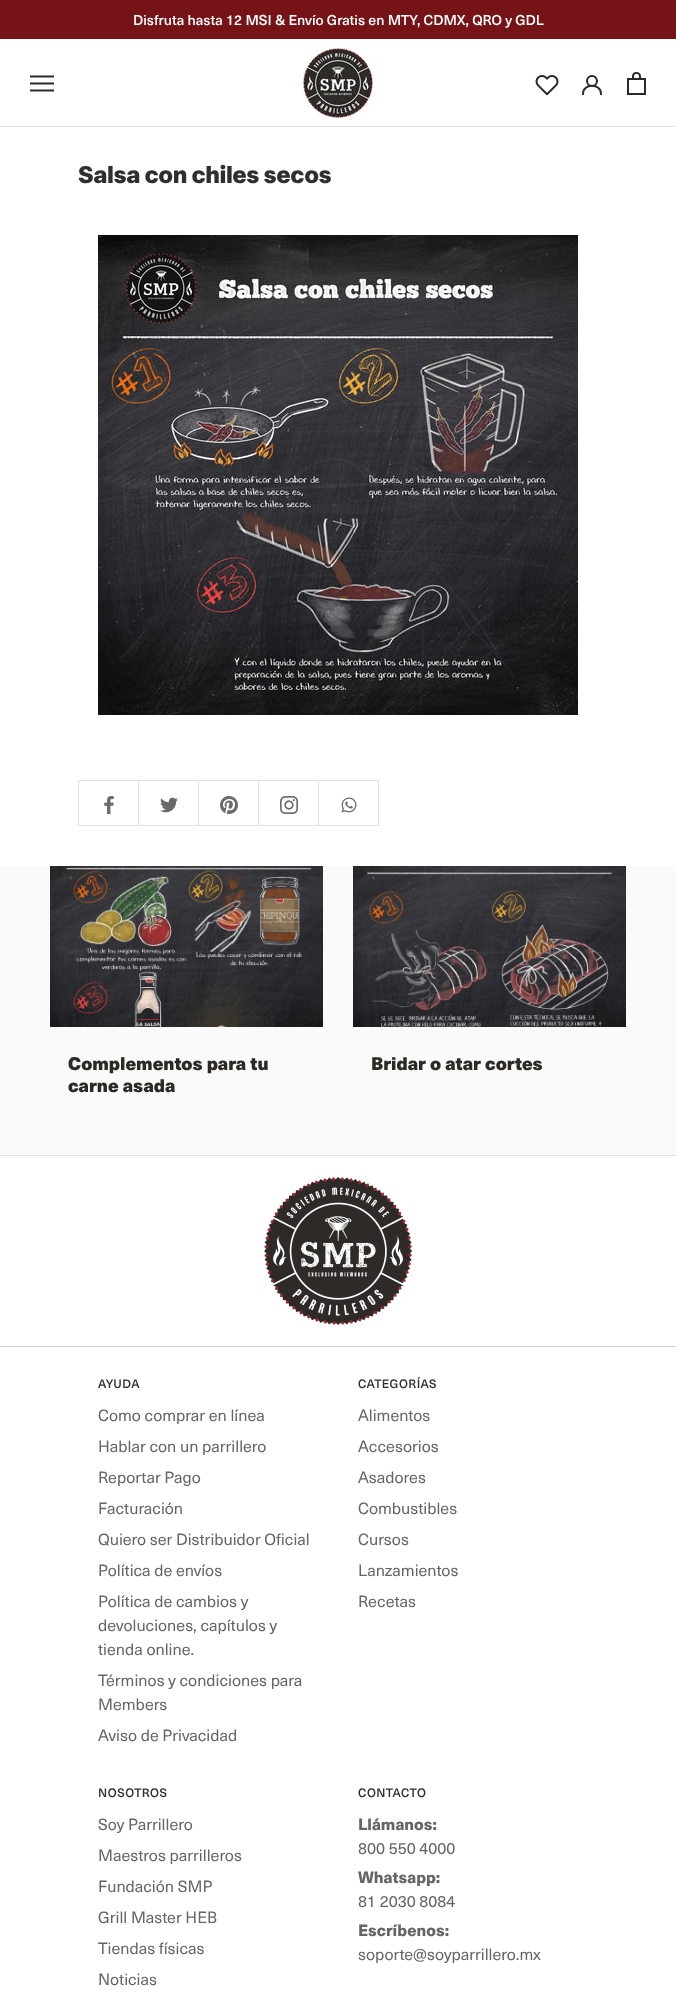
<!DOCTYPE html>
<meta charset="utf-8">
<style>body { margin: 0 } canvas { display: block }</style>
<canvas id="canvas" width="676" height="2001"></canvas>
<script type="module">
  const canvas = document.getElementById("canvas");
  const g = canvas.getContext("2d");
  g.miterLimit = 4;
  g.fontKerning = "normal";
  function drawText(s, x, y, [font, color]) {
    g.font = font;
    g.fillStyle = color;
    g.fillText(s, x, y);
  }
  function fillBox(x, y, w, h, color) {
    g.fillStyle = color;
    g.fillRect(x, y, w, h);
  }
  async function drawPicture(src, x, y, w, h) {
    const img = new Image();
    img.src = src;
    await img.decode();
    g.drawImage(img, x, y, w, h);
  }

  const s1 = ["500 14px 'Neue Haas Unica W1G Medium'", "#FFFFFF"];
  const s2 = ["800 24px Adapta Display", "#2F2F2F"];
  const s3 = ["900 18px 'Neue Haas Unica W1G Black'", "#2D2A26"];
  const s4 = ["500 12px 'Neue Haas Unica W1G Medium'", "#2F2F2F"];
  const s5 = ["16px 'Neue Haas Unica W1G'", "#656565"];
  const s6 = ["900 16px 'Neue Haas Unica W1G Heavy'", "#656565"];

  fillBox(0, 0, 676, 2001, "#FFFFFF");
  fillBox(0, 0, 676, 39, "#761316");
  drawText("Disfruta hasta 12 MSI & Envío Gratis en MTY, CDMX, QRO y GDL", 133, 25, s1);
  fillBox(0, 126, 676, 1, "#E0DFDE");
  await drawPicture("pic1.png", 30, 75, 24, 17);
  await drawPicture("pic2.png", 303, 48, 70, 70);
  await drawPicture("pic3.png", 535, 75, 24, 21);
  g.beginPath();
  g.moveTo(583, 94);
  g.bezierCurveTo(583, 83, 601, 83, 601, 94);
  g.strokeStyle = "#2D2A26";
  g.lineWidth = 2;
  g.lineCap = "square";
  g.stroke();
  g.beginPath();
  g.arc(592, 81, 5, 0, Math.PI * 2);
  g.stroke();
  await drawPicture("pic4.png", 627, 72, 19, 23);
  drawText("Salsa con chiles secos", 78, 183, s2);
  await drawPicture("pic5.png", 98, 235, 480, 480);
  fillBox(318, 780, 61, 1, "#E0E0E0");
  fillBox(378, 780, 1, 46, "#E0E0E0");
  fillBox(318, 825, 61, 1, "#E0E0E0");
  fillBox(318, 780, 1, 46, "#E0E0E0");
  fillBox(258, 780, 61, 1, "#E0E0E0");
  fillBox(258, 825, 61, 1, "#E0E0E0");
  fillBox(258, 780, 1, 46, "#E0E0E0");
  fillBox(198, 780, 61, 1, "#E0E0E0");
  fillBox(198, 825, 61, 1, "#E0E0E0");
  fillBox(198, 780, 1, 46, "#E0E0E0");
  fillBox(138, 780, 61, 1, "#E0E0E0");
  fillBox(138, 825, 61, 1, "#E0E0E0");
  fillBox(138, 780, 1, 46, "#E0E0E0");
  fillBox(78, 780, 61, 1, "#E0E0E0");
  fillBox(78, 825, 61, 1, "#E0E0E0");
  fillBox(78, 780, 1, 46, "#E0E0E0");
  await drawPicture("pic6.png", 104, 796, 10, 18);
  await drawPicture("pic7.png", 160, 797, 18, 16);
  await drawPicture("pic8.png", 220, 796, 18, 18);
  await drawPicture("pic9.png", 280, 796, 18, 18);
  await drawPicture("pic10.png", 341, 797, 16, 16);
  fillBox(0, 866, 676, 289, "#FAFAFA");
  await drawPicture("pic11.png", 50, 866, 273, 161);
  drawText("Complementos para tu", 68, 1070, s3);
  drawText("carne asada", 68, 1092, s3);
  await drawPicture("pic12.png", 353, 866, 273, 161);
  drawText("Bridar o atar cortes", 371, 1070, s3);
  fillBox(0, 1155, 676, 1, "#E0E0E0");
  fillBox(0, 1346, 676, 1, "#CFCFCF");
  await drawPicture("pic13.png", 264, 1176, 149, 149);
  g.letterSpacing = "0.5px";
  drawText("AYUDA", 98, 1388, s4);
  g.letterSpacing = "0px";
  drawText("Como comprar en línea", 98, 1421, s5);
  drawText("Hablar con un parrillero", 98, 1452, s5);
  drawText("Reportar Pago", 98, 1483, s5);
  drawText("Facturación", 98, 1514, s5);
  drawText("Quiero ser Distribuidor Oficial", 98, 1545, s5);
  drawText("Política de envíos", 98, 1576, s5);
  drawText("Política de cambios y", 98, 1607, s5);
  drawText("devoluciones, capítulos y", 98, 1631, s5);
  drawText("tienda online.", 98, 1655, s5);
  drawText("Términos y condiciones para", 98, 1686, s5);
  drawText("Members", 98, 1710, s5);
  drawText("Aviso de Privacidad", 98, 1741, s5);
  g.letterSpacing = "0.5px";
  drawText("CATEGORÍAS", 358, 1388, s4);
  g.letterSpacing = "0px";
  drawText("Alimentos", 358, 1421, s5);
  drawText("Accesorios", 358, 1452, s5);
  drawText("Asadores", 358, 1483, s5);
  drawText("Combustibles", 358, 1514, s5);
  drawText("Cursos", 358, 1545, s5);
  drawText("Lanzamientos", 358, 1576, s5);
  drawText("Recetas", 358, 1607, s5);
  g.letterSpacing = "0.5px";
  drawText("NOSOTROS", 98, 1797, s4);
  g.letterSpacing = "0px";
  drawText("Soy Parrillero", 98, 1830, s5);
  drawText("Maestros parrilleros", 98, 1861, s5);
  drawText("Fundación SMP", 98, 1892, s5);
  drawText("Grill Master HEB", 98, 1923, s5);
  drawText("Tiendas físicas", 98, 1954, s5);
  drawText("Noticias", 98, 1985, s5);
  g.letterSpacing = "0.5px";
  drawText("CONTACTO", 358, 1797, s4);
  g.letterSpacing = "0px";
  drawText("Llámanos:", 358, 1830, s6);
  drawText("800 550 4000", 358, 1854, s5);
  drawText("Whatsapp:", 358, 1883, s6);
  drawText("81 2030 8084", 358, 1907, s5);
  drawText("Escríbenos:", 358, 1936, s6);
  drawText("soporte@soyparrillero.mx", 358, 1960, s5);
</script>
